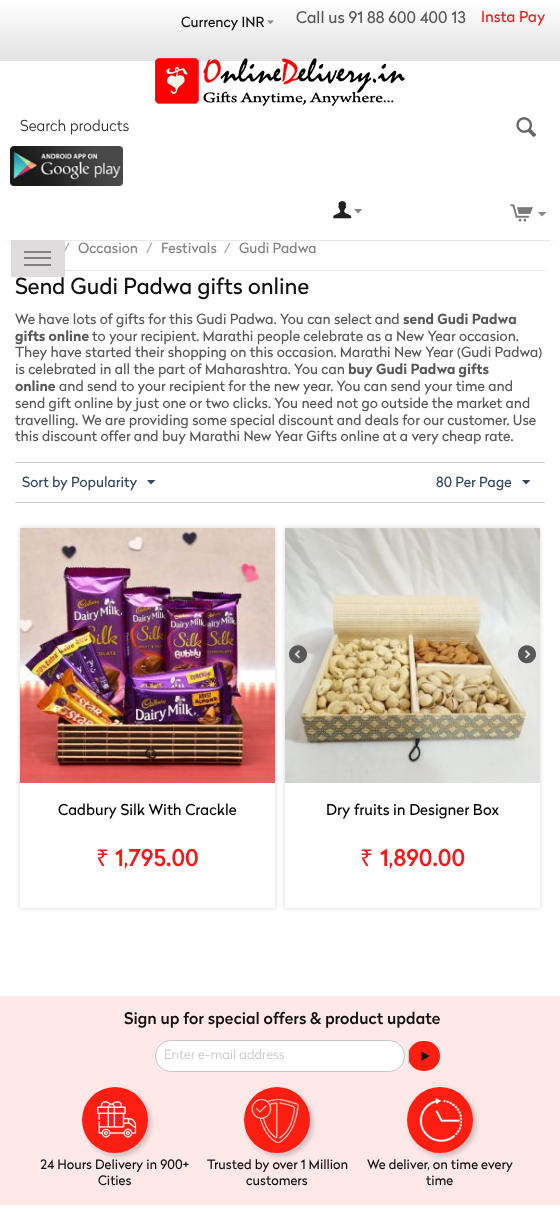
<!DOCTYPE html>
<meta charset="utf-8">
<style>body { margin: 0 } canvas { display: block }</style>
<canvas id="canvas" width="560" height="1219"></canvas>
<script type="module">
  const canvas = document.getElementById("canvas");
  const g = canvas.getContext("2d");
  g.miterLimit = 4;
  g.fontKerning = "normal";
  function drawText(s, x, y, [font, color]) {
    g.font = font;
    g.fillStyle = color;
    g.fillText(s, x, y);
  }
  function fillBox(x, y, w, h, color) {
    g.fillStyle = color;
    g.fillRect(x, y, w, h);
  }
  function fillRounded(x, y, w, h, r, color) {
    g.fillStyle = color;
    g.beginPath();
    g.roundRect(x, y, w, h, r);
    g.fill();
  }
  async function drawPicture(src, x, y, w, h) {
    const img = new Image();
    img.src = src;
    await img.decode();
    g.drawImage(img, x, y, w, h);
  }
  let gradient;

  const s1 = ["14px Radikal", "#111111"];
  const s2 = ["16px Radikal", "#585858"];
  const s3 = ["15px Radikal", "#F41A19"];
  const s4 = ["300 15px Radikal", "#333333"];
  const s5 = ["14px Radikal", "#ACACAC"];
  const s6 = ["14px Radikal", "#838383"];
  const s7 = ["22px Radikal", "#111111"];
  const s8 = ["14px Radikal", "#585858"];
  const s9 = ["bold 14px Radikal", "#585858"];
  const s10 = ["14px Radikal", "#34495E"];
  const s11 = ["15px Radikal", "#000000"];
  const s12 = ["23px Noto Sans", "#F41A19"];
  const s13 = ["500 23px Radikal", "#F41A19"];
  const s14 = ["500 16px Radikal", "#111111"];
  const s15 = ["300 13px Radikal", "#C9C9C9"];
  const s16 = ["13px Radikal", "#111111"];

  fillBox(0, 0, 560, 1219, "#FFFFFF");
  gradient = g.createLinearGradient(280, 0, 280, 61);
  gradient.addColorStop(0, "#FFFFFF");
  gradient.addColorStop(1, "#E2E2E2");
  g.fillStyle = gradient;
  g.fillRect(0, 5, 560, 56);
  drawText("Currency INR", 181, 27, s1);
  g.fillStyle = "#868686";
  g.beginPath();
  g.moveTo(270.5, 24);
  g.lineTo(267, 20.5);
  g.lineTo(274, 20.5);
  g.closePath();
  g.fill();
  drawText("Call us 91 88 600 400 13", 296, 23, s2);
  drawText("Insta Pay", 481, 22, s3);
  await drawPicture("pic1.png", 155, 58, 250, 48);
  drawText("Search products", 20, 131, s4);
  await drawPicture("pic2.png", 516, 117, 21, 20);
  await drawPicture("pic3.png", 10, 146, 113, 40);
  await drawPicture("pic4.png", 333, 201, 19, 18);
  g.fillStyle = "#868686";
  g.beginPath();
  g.moveTo(358, 213.5);
  g.lineTo(354, 209);
  g.lineTo(362.5, 209);
  g.closePath();
  g.fill();
  await drawPicture("pic5.png", 510, 204, 23, 18);
  g.beginPath();
  g.moveTo(542, 216.5);
  g.lineTo(538, 212);
  g.lineTo(546.5, 212);
  g.closePath();
  g.fill();
  fillBox(10, 240, 540, 1, "#EDEDED");
  g.save();
  g.beginPath();
  g.rect(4, 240, 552, 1);
  g.clip();
  g.fillStyle = "rgba(0, 0, 0, 0.1)";
  g.filter = "blur(3.5px)";
  g.beginPath();
  g.rect(0, 243, 560, 755);
  g.fill();
  g.filter = "none";
  g.restore();
  drawText("/", 63, 253, s5);
  fillBox(11, 240, 54, 37, "#DEDCDC");
  await drawPicture("pic6.png", 24, 251, 27, 15);
  fillBox(65, 270, 480, 1, "#EAE3E3");
  drawText("Occasion", 78, 253, s6);
  drawText("/", 146, 253, s5);
  drawText("Festivals", 161, 253, s6);
  drawText("/", 224, 253, s5);
  drawText("Gudi Padwa", 239, 253, s6);
  drawText("Send Gudi Padwa gifts online", 15, 294, s7);
  drawText("We have lots of gifts for this Gudi Padwa. You can select and", 15, 324, s8);
  drawText("send Gudi Padwa", 403, 324, s9);
  drawText("gifts online", 15, 341, s9);
  drawText("to your recipient. Marathi people celebrate as a New Year occasion.", 92, 341, s8);
  drawText("They have started their shopping on this occasion. Marathi New Year (Gudi Padwa)", 15, 357, s8);
  drawText("is celebrated in all the part of Maharashtra. You can", 15, 374, s8);
  drawText("buy Gudi Padwa gifts", 348, 374, s9);
  drawText("online", 15, 391, s9);
  drawText("and send to your recipient for the new year. You can send your time and", 59, 391, s8);
  drawText("send gift online by just one or two clicks. You need not go outside the market and", 15, 408, s8);
  drawText("travelling. We are providing some special discount and deals for our customer. Use", 15, 425, s8);
  drawText("this discount offer and buy Marathi New Year Gifts online at a very cheap rate.", 15, 441, s8);
  fillBox(15, 462, 530, 1, "#CCCCCC");
  fillBox(15, 502, 530, 1, "#CCCCCC");
  drawText("Sort by Popularity", 22, 487, s10);
  g.beginPath();
  g.moveTo(151, 484.5);
  g.lineTo(147, 480);
  g.lineTo(155.5, 480);
  g.closePath();
  g.fill();
  drawText("80 Per Page", 436, 487, s10);
  g.beginPath();
  g.moveTo(526, 484.5);
  g.lineTo(522, 480);
  g.lineTo(530.5, 480);
  g.closePath();
  g.fill();
  g.save();
  g.beginPath();
  g.moveTo(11, 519);
  g.lineTo(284, 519);
  g.lineTo(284, 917);
  g.lineTo(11, 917);
  g.closePath();
  g.moveTo(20, 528);
  g.lineTo(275, 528);
  g.lineTo(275, 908);
  g.lineTo(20, 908);
  g.closePath();
  g.clip("evenodd");
  g.fillStyle = "rgba(0, 0, 0, 0.15)";
  g.filter = "blur(2.5px)";
  g.beginPath();
  g.rect(20, 528, 255, 380);
  g.fill();
  g.filter = "none";
  g.restore();
  await drawPicture("pic7.png", 20, 528, 255, 255);
  drawText("Cadbury Silk With Crackle", 58, 815, s11);
  drawText("₹", 96, 866, s12);
  drawText("1,795.00", 115, 866, s13);
  g.save();
  g.beginPath();
  g.moveTo(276, 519);
  g.lineTo(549, 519);
  g.lineTo(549, 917);
  g.lineTo(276, 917);
  g.closePath();
  g.moveTo(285, 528);
  g.lineTo(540, 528);
  g.lineTo(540, 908);
  g.lineTo(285, 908);
  g.closePath();
  g.clip("evenodd");
  g.fillStyle = "rgba(0, 0, 0, 0.15)";
  g.filter = "blur(2.5px)";
  g.beginPath();
  g.rect(285, 528, 255, 380);
  g.fill();
  g.filter = "none";
  g.restore();
  await drawPicture("pic8.png", 285, 528, 255, 255);
  await drawPicture("pic9.png", 289, 645, 18, 19);
  await drawPicture("pic10.png", 518, 645, 18, 19);
  drawText("Dry fruits in Designer Box", 326, 815, s11);
  drawText("₹", 360, 866, s12);
  drawText("1,890.00", 380, 866, s13);
  fillBox(0, 996, 560, 209, "#FFE8E7");
  drawText("Sign up for special offers & product update", 124, 1024, s14);
  g.fillStyle = "#FFFFFF";
  g.beginPath();
  g.roundRect(155.5, 1040.5, 249, 31, 15.5);
  g.fill();
  g.strokeStyle = "#C6C6C6";
  g.stroke();
  drawText("Enter e-mail address", 164, 1059, s15);
  fillRounded(408, 1041, 32, 30, 15, "#FF1F12");
  fillBox(408, 1049, 1, 15, "#CDCDCD");
  g.fillStyle = "#111111";
  g.beginPath();
  g.moveTo(421.5, 1051.5);
  g.lineTo(429.5, 1056);
  g.lineTo(421.5, 1061);
  g.closePath();
  g.fill();
  g.fillStyle = "rgba(0, 0, 0, 0.2)";
  g.filter = "blur(2.5px)";
  g.beginPath();
  g.roundRect(85, 1090, 66, 66, 33);
  g.fill();
  g.filter = "none";
  g.fillStyle = "#FF1F12";
  g.beginPath();
  g.arc(115, 1120, 33, 0, Math.PI * 2);
  g.fill();
  await drawPicture("pic11.png", 97, 1101, 40, 37);
  drawText("24 Hours Delivery in 900+", 40, 1169, s16);
  drawText("Cities", 98, 1185, s16);
  g.fillStyle = "rgba(0, 0, 0, 0.2)";
  g.filter = "blur(2.5px)";
  g.beginPath();
  g.roundRect(247, 1090, 66, 66, 33);
  g.fill();
  g.filter = "none";
  g.fillStyle = "#FF1F12";
  g.beginPath();
  g.arc(277, 1120, 33, 0, Math.PI * 2);
  g.fill();
  await drawPicture("pic12.png", 251, 1099, 48, 44);
  drawText("Trusted by over 1 Million", 207, 1169, s16);
  drawText("customers", 246, 1185, s16);
  g.fillStyle = "rgba(0, 0, 0, 0.2)";
  g.filter = "blur(2.5px)";
  g.beginPath();
  g.roundRect(410, 1090, 66, 66, 33);
  g.fill();
  g.filter = "none";
  g.fillStyle = "#FF1F12";
  g.beginPath();
  g.arc(440, 1120, 33, 0, Math.PI * 2);
  g.fill();
  await drawPicture("pic13.png", 419, 1098, 43, 44);
  drawText("We deliver, on time every", 367, 1169, s16);
  drawText("time", 426, 1185, s16);
</script>
